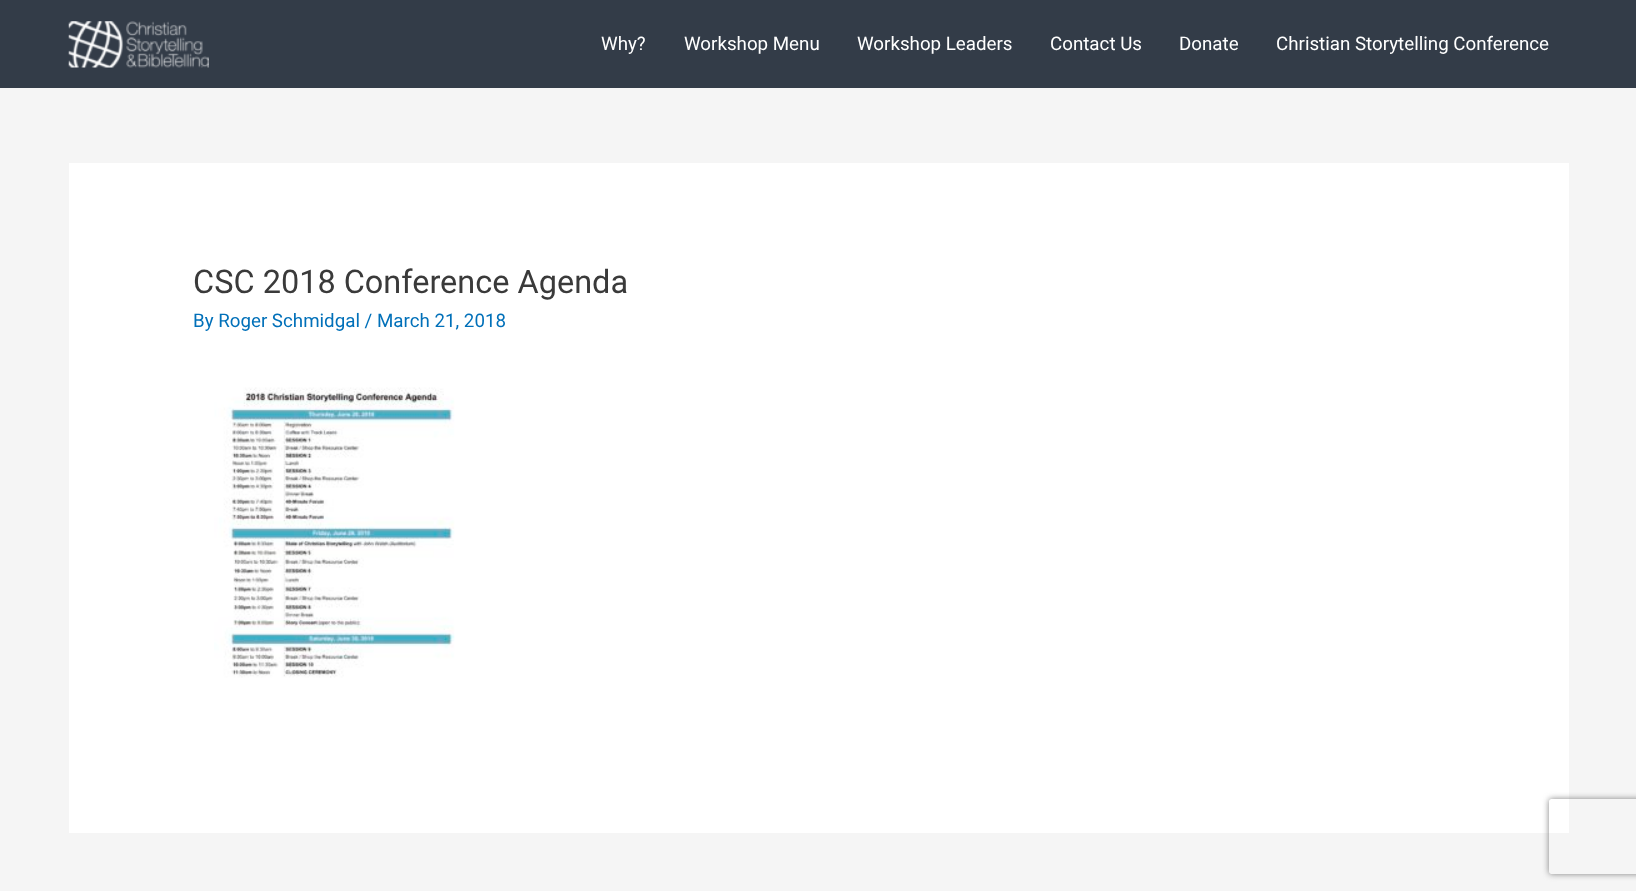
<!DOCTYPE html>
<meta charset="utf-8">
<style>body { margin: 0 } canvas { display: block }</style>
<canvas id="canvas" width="1636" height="891"></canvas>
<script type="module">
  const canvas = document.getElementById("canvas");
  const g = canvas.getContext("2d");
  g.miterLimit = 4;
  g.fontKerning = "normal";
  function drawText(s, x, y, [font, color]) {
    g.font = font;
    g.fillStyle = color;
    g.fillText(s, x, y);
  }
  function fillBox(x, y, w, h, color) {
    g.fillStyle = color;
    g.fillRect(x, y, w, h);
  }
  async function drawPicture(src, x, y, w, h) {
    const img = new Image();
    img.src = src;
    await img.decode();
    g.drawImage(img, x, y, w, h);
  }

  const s1 = ["18.75px Roboto", "#FFFFFF"];
  const s2 = ["32.5px Roboto", "#3A3A3A"];
  const s3 = ["18.75px Roboto", "#0170B9"];

  fillBox(0, 0, 1636, 891, "#F5F5F5");
  fillBox(0, 0, 1636, 88, "#333C48");
  await drawPicture("pic1.png", 68, 21, 141, 47);
  drawText("Why?", 601, 50, s1);
  drawText("Workshop Menu", 684, 50, s1);
  drawText("Workshop Leaders", 857, 50, s1);
  drawText("Contact Us", 1050, 50, s1);
  drawText("Donate", 1179, 50, s1);
  drawText("Christian Storytelling Conference", 1276, 50, s1);
  fillBox(69, 163, 1500, 670, "#FFFFFF");
  drawText("CSC 2018 Conference Agenda", 193, 293, s2);
  drawText("By Roger Schmidgal / March 21, 2018", 193, 327, s3);
  await drawPicture("pic2.png", 214, 387, 241, 291);
  g.save();
  g.beginPath();
  g.moveTo(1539, 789);
  g.lineTo(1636, 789);
  g.lineTo(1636, 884);
  g.lineTo(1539, 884);
  g.closePath();
  g.moveTo(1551.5, 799);
  g.lineTo(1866.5, 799);
  g.bezierCurveTo(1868, 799, 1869, 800, 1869, 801.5);
  g.lineTo(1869, 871.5);
  g.bezierCurveTo(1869, 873, 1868, 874, 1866.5, 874);
  g.lineTo(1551.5, 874);
  g.bezierCurveTo(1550, 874, 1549, 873, 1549, 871.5);
  g.lineTo(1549, 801.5);
  g.bezierCurveTo(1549, 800, 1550, 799, 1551.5, 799);
  g.closePath();
  g.clip("evenodd");
  g.fillStyle = "#808080";
  g.filter = "blur(3px)";
  g.beginPath();
  g.roundRect(1549, 799, 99, 75, 2.5);
  g.fill();
  g.filter = "none";
  g.restore();
</script>
